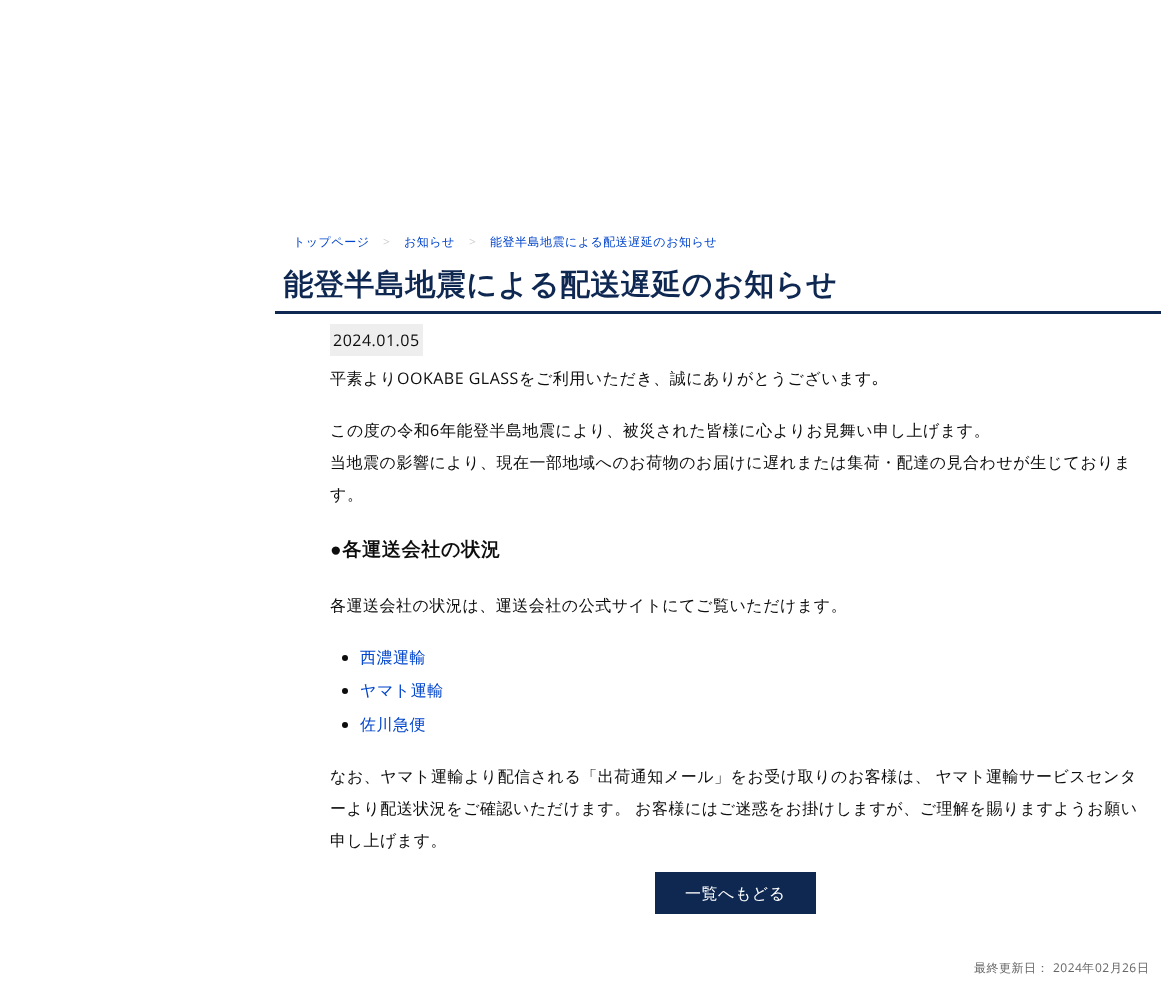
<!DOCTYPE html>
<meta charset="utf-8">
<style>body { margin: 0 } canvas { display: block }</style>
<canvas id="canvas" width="1161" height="988"></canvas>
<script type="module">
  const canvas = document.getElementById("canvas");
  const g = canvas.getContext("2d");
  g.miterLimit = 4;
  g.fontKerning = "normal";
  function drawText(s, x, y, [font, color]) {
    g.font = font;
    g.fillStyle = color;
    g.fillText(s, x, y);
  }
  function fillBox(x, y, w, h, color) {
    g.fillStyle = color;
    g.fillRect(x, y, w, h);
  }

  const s1 = ["500 12px WenQuanYi Zen Hei", "#0044CC"];
  const s2 = ["12px Open Sans", "#CCCCCC"];
  const s3 = ["bold 30px WenQuanYi Zen Hei", "#0F2852"];
  const s4 = ["16px Open Sans", "#0D0D0D"];
  const s5 = ["500 16px WenQuanYi Zen Hei", "#0D0D0D"];
  const s6 = ["16px IPAPGothic", "#0D0D0D"];
  const s7 = ["bold 19.25px Liberation Sans", "#0D0D0D"];
  const s8 = ["bold 19.25px WenQuanYi Zen Hei", "#0D0D0D"];
  const s9 = ["500 16px WenQuanYi Zen Hei", "#0044CC"];
  const s10 = ["500 16px WenQuanYi Zen Hei", "#FFFFFF"];
  const s11 = ["500 12px WenQuanYi Zen Hei", "#666666"];
  const s12 = ["12px Open Sans", "#666666"];

  fillBox(0, 0, 1161, 988, "#FFFFFF");
  g.letterSpacing = "0.5px";
  drawText("トップページ", 293, 246, s1);
  drawText(">", 383, 246, s2);
  drawText("お知らせ", 404, 246, s1);
  drawText(">", 469, 246, s2);
  drawText("能登半島地震による配送遅延のお知らせ", 490, 246, s1);
  fillBox(275, 311, 886, 3, "#0F2852");
  drawText("能登半島地震による配送遅延のお知らせ", 283, 295, s3);
  fillBox(330, 324, 93, 32, "#EEEEEE");
  drawText("2024.01.05", 333, 346, s4);
  drawText("平素より", 330, 384, s5);
  drawText("OOKABE GLASS", 397, 384, s4);
  drawText("をご利用いただき、誠にありがとうございます", 519, 384, s5);
  drawText("｡", 872, 384, s6);
  drawText("この度の令和", 330, 436, s5);
  drawText("6", 430, 436, s4);
  drawText("年能登半島地震により、被災された皆様に心よりお見舞い申し上げます。", 440, 436, s5);
  drawText("当地震の影響により、現在一部地域へのお荷物のお届けに遅れまたは集荷・配達の見合わせが生じておりま", 330, 468, s5);
  drawText("す。", 330, 500, s5);
  drawText("●", 330, 556, s7);
  drawText("各運送会社の状況", 342, 556, s8);
  drawText("各運送会社の状況は、運送会社の公式サイトにてご覧いただけます。", 330, 611, s5);
  g.beginPath();
  g.arc(345, 658, 3, 0, Math.PI * 2);
  g.fill();
  drawText("西濃運輸", 360, 663, s9);
  g.fillStyle = "#0D0D0D";
  g.beginPath();
  g.arc(345, 691, 3, 0, Math.PI * 2);
  g.fill();
  drawText("ヤマト運輸", 360, 696, s9);
  g.fillStyle = "#0D0D0D";
  g.beginPath();
  g.arc(345, 725, 3, 0, Math.PI * 2);
  g.fill();
  drawText("佐川急便", 360, 730, s9);
  g.wordSpacing = "-1px";
  drawText("なお、ヤマト運輸より配信される「出荷通知メール」をお受け取りのお客様は、 ヤマト運輸サービスセンタ", 330, 782, s5);
  drawText("ーより配送状況をご確認いただけます。 お客様にはご迷惑をお掛けしますが、ご理解を賜りますようお願い", 330, 814, s5);
  g.wordSpacing = "0px";
  drawText("申し上げます。", 330, 846, s5);
  fillBox(655, 872, 161, 42, "#0F2852");
  drawText("一覧へもどる", 685, 899, s10);
  drawText("最終更新日：", 974, 972, s11);
  drawText("2024", 1053, 972, s12);
  drawText("年", 1082, 972, s11);
  drawText("02", 1095, 972, s12);
  drawText("月", 1110, 972, s11);
  drawText("26", 1122, 972, s12);
  drawText("日", 1137, 972, s11);
</script>
